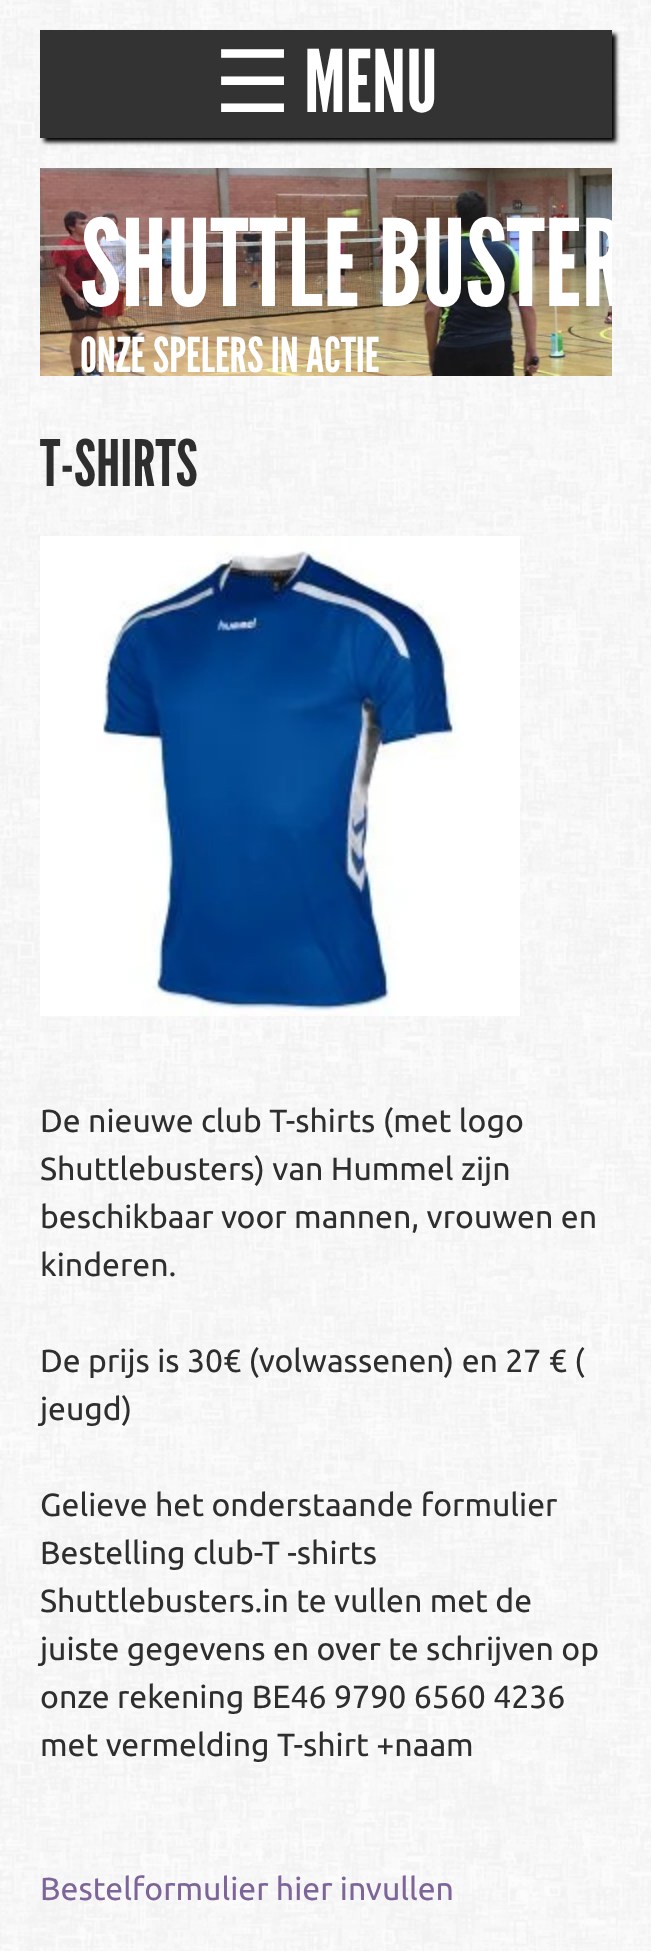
<!DOCTYPE html>
<meta charset="utf-8">
<style>body { margin: 0 } canvas { display: block }</style>
<canvas id="canvas" width="651" height="1951"></canvas>
<script type="module">
  const canvas = document.getElementById("canvas");
  const g = canvas.getContext("2d");
  g.miterLimit = 4;
  g.fontKerning = "normal";
  function drawText(s, x, y, [font, color]) {
    g.font = font;
    g.fillStyle = color;
    g.fillText(s, x, y);
  }
  function fillBox(x, y, w, h, color) {
    g.fillStyle = color;
    g.fillRect(x, y, w, h);
  }
  async function drawPicture(src, x, y, w, h) {
    const img = new Image();
    img.src = src;
    await img.decode();
    g.drawImage(img, x, y, w, h);
  }

  const s1 = ["86px DejaVu Sans", "#FFFFFF"];
  const s2 = ["86px League Gothic", "#FFFFFF"];
  const s3 = ["120px League Gothic", "#FFFFFF"];
  const s4 = ["48px League Gothic", "#FFFFFF"];
  const s5 = ["64px League Gothic", "#2E2E2E"];
  const s6 = ["32px Ubuntu", "#2E2E2E"];
  const s7 = ["32px Ubuntu", "#7E6599"];

  fillBox(0, 0, 651, 1951, "#FFFFFF");
  await drawPicture("pic1.png", 0, 0, 651, 1951);
  g.fillStyle = "#000000";
  g.filter = "blur(2px)";
  g.beginPath();
  g.rect(44, 34, 572, 108);
  g.fill();
  g.filter = "none";
  fillBox(40, 30, 572, 108, "#333333");
  drawText("☰", 214, 112, s1);
  drawText("MENU", 304, 112, s2);
  await drawPicture("pic2.png", 40, 168, 572, 208);
  g.save();
  g.beginPath();
  g.rect(40, 168, 572, 260);
  g.clip();
  drawText("SHUTTLE BUSTER", 80, 306, s3);
  g.restore();
  drawText("ONZE SPELERS IN ACTIE", 80, 372, s4);
  drawText("T-SHIRTS", 40, 486, s5);
  await drawPicture("pic3.png", 40, 536, 480, 480);
  drawText("De nieuwe club T-shirts (met logo", 40, 1132, s6);
  drawText("Shuttlebusters) van Hummel zijn", 40, 1180, s6);
  drawText("beschikbaar voor mannen, vrouwen en", 40, 1228, s6);
  drawText("kinderen.", 40, 1276, s6);
  drawText("De prijs is 30€ (volwassenen) en 27 € (", 40, 1372, s6);
  drawText("jeugd)", 40, 1420, s6);
  drawText("Gelieve het onderstaande formulier", 40, 1516, s6);
  drawText("Bestelling club-T -shirts", 40, 1564, s6);
  drawText("Shuttlebusters.in te vullen met de", 40, 1612, s6);
  drawText("juiste gegevens en over te schrijven op", 40, 1660, s6);
  drawText("onze rekening BE46 9790 6560 4236", 40, 1708, s6);
  drawText("met vermelding T-shirt +naam", 40, 1756, s6);
  drawText("Bestelformulier hier invullen", 40, 1900, s7);
</script>
